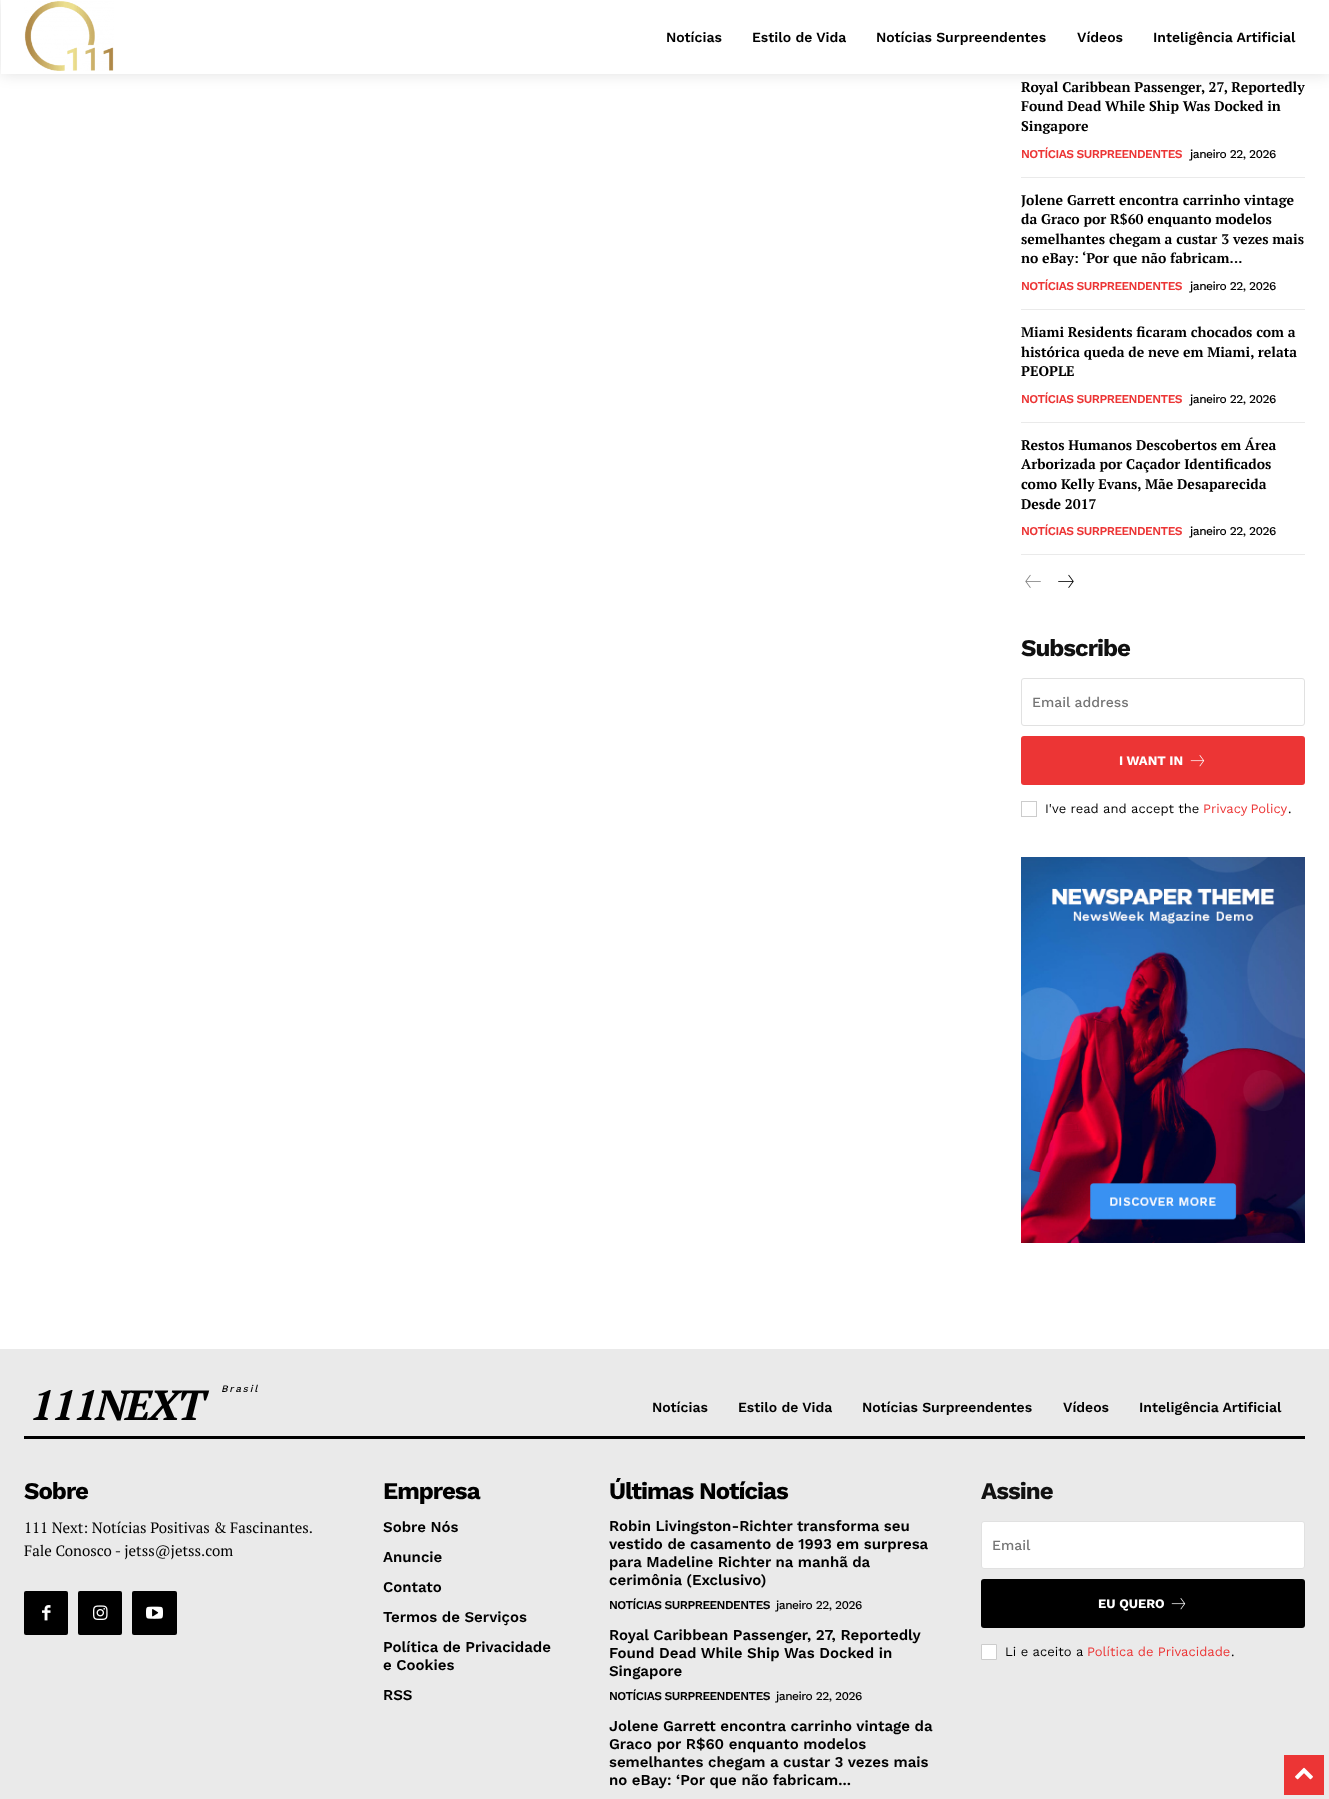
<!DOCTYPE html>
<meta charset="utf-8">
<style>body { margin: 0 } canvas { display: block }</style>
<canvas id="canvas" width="1329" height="1799"></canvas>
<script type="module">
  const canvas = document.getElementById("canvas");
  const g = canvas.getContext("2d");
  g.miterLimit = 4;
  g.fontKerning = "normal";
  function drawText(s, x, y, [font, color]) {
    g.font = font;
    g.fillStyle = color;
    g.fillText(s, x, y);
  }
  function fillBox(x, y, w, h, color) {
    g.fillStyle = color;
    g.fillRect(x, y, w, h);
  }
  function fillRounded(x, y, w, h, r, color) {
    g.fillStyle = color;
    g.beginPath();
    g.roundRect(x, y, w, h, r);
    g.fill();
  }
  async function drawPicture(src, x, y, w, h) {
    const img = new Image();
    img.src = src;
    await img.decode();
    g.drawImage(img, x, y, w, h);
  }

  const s1 = ["600 14px Work Sans", "#000000"];
  const s2 = ["bold 14px PT Serif", "#000000"];
  const s3 = ["600 12px Work Sans", "#EC3535"];
  const s4 = ["500 12px Work Sans", "#000000"];
  const s5 = ["bold 24px Work Sans", "#111111"];
  const s6 = ["500 14px Work Sans", "#757575"];
  const s7 = ["bold 13px Work Sans", "#FFFFFF"];
  const s8 = ["13px Work Sans", "#000000"];
  const s9 = ["13px Work Sans", "#EC3535"];
  const s10 = ["italic 500 10px Work Sans", "#000000"];
  const s11 = ["italic bold 42px PT Serif", "#000000"];
  const s12 = ["bold 24px Work Sans", "#000000"];
  const s13 = ["15px PT Serif", "#000000"];
  const s14 = ["600 15px Work Sans", "#000000"];
  const s15 = ["600 12px Work Sans", "#000000"];

  fillBox(0, 0, 1329, 1799, "#FFFFFF");
  await drawPicture("pic1.png", 24, 1, 90, 70);
  g.save();
  g.beginPath();
  g.moveTo(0, 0);
  g.lineTo(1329, 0);
  g.lineTo(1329, 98);
  g.lineTo(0, 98);
  g.closePath();
  g.moveTo(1, 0);
  g.lineTo(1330, 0);
  g.lineTo(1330, 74);
  g.lineTo(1, 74);
  g.closePath();
  g.clip("evenodd");
  g.fillStyle = "rgba(0, 0, 0, 0.12)";
  g.filter = "blur(7.5px)";
  g.beginPath();
  g.rect(1, 0, 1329, 74);
  g.fill();
  g.filter = "none";
  g.restore();
  drawText("Notícias", 666, 42, s1);
  drawText("Estilo de Vida", 752, 42, s1);
  drawText("Notícias Surpreendentes", 876, 42, s1);
  drawText("Vídeos", 1077, 42, s1);
  drawText("Inteligência Artificial", 1153, 42, s1);
  fillBox(1021, 177, 284, 1, "#EAEAEA");
  drawText("Royal Caribbean Passenger, 27, Reportedly", 1021, 92, s2);
  drawText("Found Dead While Ship Was Docked in", 1021, 111, s2);
  drawText("Singapore", 1021, 131, s2);
  g.letterSpacing = "-0.5px";
  drawText("NOTÍCIAS SURPREENDENTES", 1021, 158, s3);
  drawText("janeiro 22, 2026", 1190, 158, s4);
  fillBox(1021, 309, 284, 1, "#EAEAEA");
  g.letterSpacing = "0px";
  drawText("Jolene Garrett encontra carrinho vintage", 1021, 205, s2);
  drawText("da Graco por R$60 enquanto modelos", 1021, 224, s2);
  drawText("semelhantes chegam a custar 3 vezes mais", 1021, 244, s2);
  drawText("no eBay: ‘Por que não fabricam...", 1021, 263, s2);
  g.letterSpacing = "-0.5px";
  drawText("NOTÍCIAS SURPREENDENTES", 1021, 290, s3);
  drawText("janeiro 22, 2026", 1190, 290, s4);
  fillBox(1021, 422, 284, 1, "#EAEAEA");
  g.letterSpacing = "0px";
  drawText("Miami Residents ficaram chocados com a", 1021, 337, s2);
  drawText("histórica queda de neve em Miami, relata", 1021, 357, s2);
  drawText("PEOPLE", 1021, 376, s2);
  g.letterSpacing = "-0.5px";
  drawText("NOTÍCIAS SURPREENDENTES", 1021, 403, s3);
  drawText("janeiro 22, 2026", 1190, 403, s4);
  fillBox(1021, 554, 284, 1, "#EAEAEA");
  g.letterSpacing = "0px";
  drawText("Restos Humanos Descobertos em Área", 1021, 450, s2);
  drawText("Arborizada por Caçador Identificados", 1021, 469, s2);
  drawText("como Kelly Evans, Mãe Desaparecida", 1021, 489, s2);
  drawText("Desde 2017", 1021, 509, s2);
  g.letterSpacing = "-0.5px";
  drawText("NOTÍCIAS SURPREENDENTES", 1021, 535, s3);
  drawText("janeiro 22, 2026", 1190, 535, s4);
  await drawPicture("pic2.png", 1025, 574, 16, 14);
  await drawPicture("pic3.png", 1058, 574, 16, 14);
  g.letterSpacing = "-1px";
  drawText("Subscribe", 1021, 656, s5);
  g.beginPath();
  g.roundRect(1021.5, 678.5, 283, 47, 2.5);
  g.strokeStyle = "#E1E1E1";
  g.stroke();
  g.letterSpacing = "0px";
  drawText("Email address", 1032, 707, s6);
  fillRounded(1021, 736, 284, 49, 3, "#EC3535");
  drawText("I WANT IN", 1119, 765, s7);
  await drawPicture("pic4.png", 1190, 755, 15, 12);
  g.strokeStyle = "#CCCCCC";
  g.strokeRect(1021.5, 801.5, 15, 15);
  drawText("I've read and accept the", 1045, 813, s8);
  g.wordSpacing = "-1px";
  drawText("Privacy Policy", 1203, 813, s9);
  g.wordSpacing = "0px";
  drawText(".", 1288, 813, s8);
  await drawPicture("pic5.png", 1021, 857, 284, 386);
  fillBox(0, 1349, 1329, 450, "#EAEAEA");
  fillBox(24, 1436, 1281, 3, "#000000");
  g.letterSpacing = "1.75px";
  drawText("Brasil", 221, 1392, s10);
  g.letterSpacing = "-2px";
  drawText("111NEXT", 28, 1420, s11);
  g.letterSpacing = "0px";
  drawText("Notícias", 652, 1412, s1);
  drawText("Estilo de Vida", 738, 1412, s1);
  drawText("Notícias Surpreendentes", 862, 1412, s1);
  drawText("Vídeos", 1063, 1412, s1);
  drawText("Inteligência Artificial", 1139, 1412, s1);
  g.letterSpacing = "-1px";
  drawText("Sobre", 24, 1499, s12);
  g.letterSpacing = "0px";
  drawText("111 Next: Notícias Positivas & Fascinantes.", 24, 1533, s13);
  drawText("Fale Conosco - jetss@jetss.com", 24, 1556, s13);
  fillRounded(24, 1591, 44, 44, 2, "#000000");
  await drawPicture("pic6.png", 42, 1605, 9, 16);
  fillRounded(78, 1591, 44, 44, 2, "#000000");
  await drawPicture("pic7.png", 93, 1605, 15, 15);
  fillRounded(132, 1591, 45, 44, 2, "#000000");
  await drawPicture("pic8.png", 146, 1606, 17, 13);
  g.letterSpacing = "-1px";
  drawText("Empresa", 383, 1499, s12);
  g.letterSpacing = "0px";
  drawText("Sobre Nós", 383, 1532, s14);
  drawText("Anuncie", 383, 1562, s14);
  drawText("Contato", 383, 1592, s14);
  drawText("Termos de Serviços", 383, 1622, s14);
  drawText("Política de Privacidade", 383, 1652, s14);
  drawText("e Cookies", 383, 1670, s14);
  drawText("RSS", 383, 1700, s14);
  g.letterSpacing = "-1px";
  drawText("Últimas Notícias", 609, 1499, s12);
  g.letterSpacing = "0px";
  drawText("Robin Livingston-Richter transforma seu", 609, 1531, s14);
  drawText("vestido de casamento de 1993 em surpresa", 609, 1549, s14);
  drawText("para Madeline Richter na manhã da", 609, 1567, s14);
  drawText("cerimônia (Exclusivo)", 609, 1585, s14);
  g.letterSpacing = "-0.5px";
  drawText("NOTÍCIAS SURPREENDENTES", 609, 1609, s15);
  drawText("janeiro 22, 2026", 776, 1609, s4);
  g.letterSpacing = "0px";
  drawText("Royal Caribbean Passenger, 27, Reportedly", 609, 1640, s14);
  drawText("Found Dead While Ship Was Docked in", 609, 1658, s14);
  drawText("Singapore", 609, 1676, s14);
  g.letterSpacing = "-0.5px";
  drawText("NOTÍCIAS SURPREENDENTES", 609, 1700, s15);
  drawText("janeiro 22, 2026", 776, 1700, s4);
  g.letterSpacing = "0px";
  drawText("Jolene Garrett encontra carrinho vintage da", 609, 1731, s14);
  drawText("Graco por R$60 enquanto modelos", 609, 1749, s14);
  drawText("semelhantes chegam a custar 3 vezes mais", 609, 1767, s14);
  drawText("no eBay: ‘Por que não fabricam...", 609, 1785, s14);
  g.letterSpacing = "-1px";
  drawText("Assine", 981, 1499, s5);
  g.fillStyle = "#FFFFFF";
  g.beginPath();
  g.roundRect(981.5, 1521.5, 323, 47, 2.5);
  g.fill();
  g.strokeStyle = "#E1E1E1";
  g.stroke();
  g.letterSpacing = "0px";
  drawText("Email", 992, 1550, s6);
  fillRounded(981, 1579, 324, 49, 3, "#000000");
  drawText("EU QUERO", 1098, 1608, s7);
  await drawPicture("pic9.png", 1171, 1598, 15, 12);
  g.beginPath();
  g.rect(981.5, 1644.5, 15, 15);
  g.fill();
  g.strokeStyle = "#CCCCCC";
  g.stroke();
  drawText("Li e aceito a", 1005, 1656, s8);
  drawText("Política de Privacidade", 1087, 1656, s9);
  drawText(".", 1231, 1656, s8);
  fillBox(1284, 1755, 40, 40, "#EC3535");
  await drawPicture("pic10.png", 1295, 1767, 18, 13);
</script>
